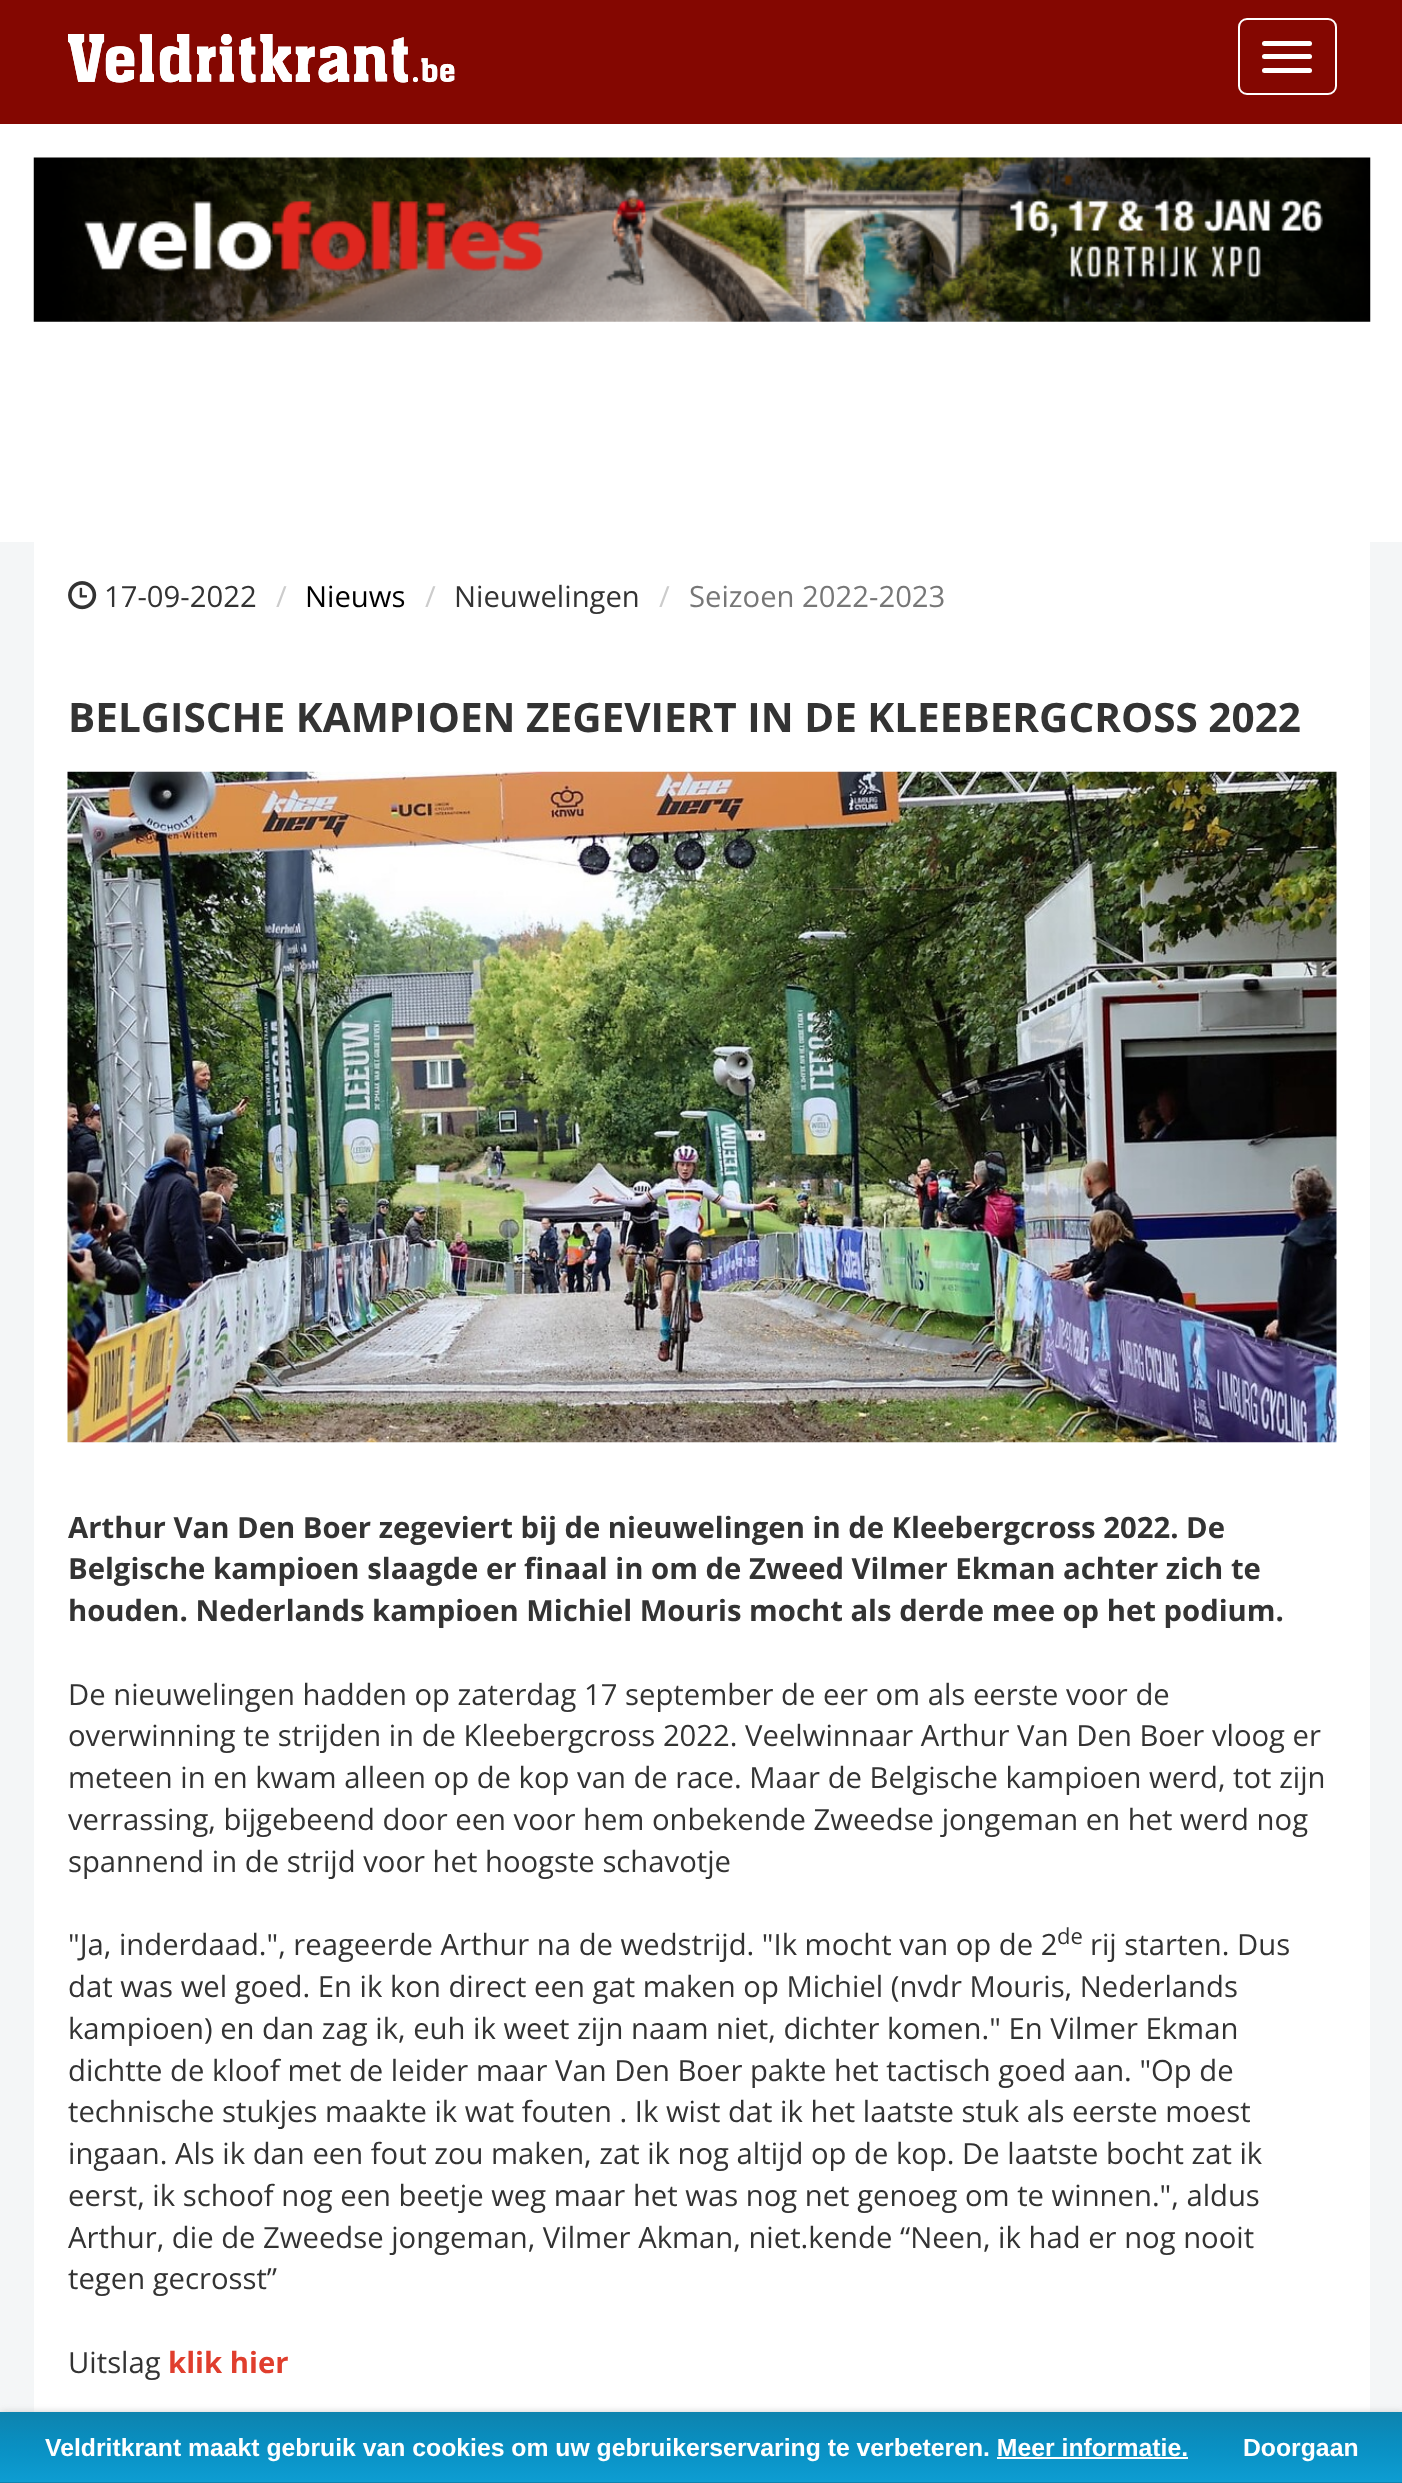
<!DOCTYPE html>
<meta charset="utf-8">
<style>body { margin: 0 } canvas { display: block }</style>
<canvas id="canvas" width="1402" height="2483"></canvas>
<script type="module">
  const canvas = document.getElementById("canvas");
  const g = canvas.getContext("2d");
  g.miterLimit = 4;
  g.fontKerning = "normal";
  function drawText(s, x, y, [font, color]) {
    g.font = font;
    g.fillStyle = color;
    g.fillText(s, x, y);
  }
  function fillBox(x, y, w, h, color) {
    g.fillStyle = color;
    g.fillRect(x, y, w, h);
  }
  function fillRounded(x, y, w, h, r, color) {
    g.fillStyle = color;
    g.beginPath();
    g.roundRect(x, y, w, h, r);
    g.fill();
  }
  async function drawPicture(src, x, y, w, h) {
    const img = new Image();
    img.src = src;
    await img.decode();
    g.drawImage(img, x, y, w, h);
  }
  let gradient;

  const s1 = ["29.25px Open Sans", "#333333"];
  const s2 = ["29.25px Open Sans", "#CCCCCC"];
  const s3 = ["29.25px Open Sans", "#000000"];
  const s4 = ["29.25px Open Sans", "#777777"];
  const s5 = ["bold 40.5px Open Sans", "#333333"];
  const s6 = ["bold 29.25px Open Sans", "#333333"];
  const s7 = ["22px Open Sans", "#333333"];
  const s8 = ["bold 29.25px Open Sans", "#E03E2D"];
  const s9 = ["bold 24.75px Liberation Sans", "#FFFFFF"];

  fillBox(0, 0, 1402, 2483, "#FFFFFF");
  fillBox(0, 0, 1402, 124, "#840701");
  await drawPicture("pic1.png", 68, 34, 387, 49);
  g.beginPath();
  g.roundRect(1239, 19, 97, 75, 8);
  g.strokeStyle = "#FFFFFF";
  g.lineWidth = 2;
  g.stroke();
  fillRounded(1262, 41, 50, 5, 2.5, "#FFFFFF");
  fillRounded(1262, 54, 50, 5, 2.5, "#FFFFFF");
  fillRounded(1262, 68, 50, 5, 2.5, "#FFFFFF");
  await drawPicture("pic2.png", 33, 157, 1338, 165);
  fillBox(0, 542, 1402, 1870, "#F4F6F7");
  fillBox(34, 542, 1336, 1870, "#FFFFFF");
  await drawPicture("pic3.png", 68, 581, 29, 29);
  drawText("17-09-2022", 104, 607, s1);
  drawText("/", 276, 607, s2);
  drawText("Nieuws", 305, 607, s3);
  drawText("/", 425, 607, s2);
  drawText("Nieuwelingen", 454, 607, s1);
  drawText("/", 659, 607, s2);
  drawText("Seizoen 2022-2023", 689, 607, s4);
  drawText("BELGISCHE KAMPIOEN ZEGEVIERT IN DE KLEEBERGCROSS 2022", 68, 732, s5);
  await drawPicture("pic4.png", 67, 771, 1270, 672);
  drawText("Arthur Van Den Boer zegeviert bij de nieuwelingen in de Kleebergcross 2022. De", 68, 1538, s6);
  drawText("Belgische kampioen slaagde er finaal in om de Zweed Vilmer Ekman achter zich te", 68, 1579, s6);
  drawText("houden. Nederlands kampioen Michiel Mouris mocht als derde mee op het podium.", 68, 1621, s6);
  drawText("De nieuwelingen hadden op zaterdag 17 september de eer om als eerste voor de", 68, 1705, s1);
  drawText("overwinning te strijden in de Kleebergcross 2022. Veelwinnaar Arthur Van Den Boer vloog er", 68, 1746, s1);
  drawText("meteen in en kwam alleen op de kop van de race. Maar de Belgische kampioen werd, tot zijn", 68, 1788, s1);
  drawText("verrassing, bijgebeend door een voor hem onbekende Zweedse jongeman en het werd nog", 68, 1830, s1);
  drawText("spannend in de strijd voor het hoogste schavotje", 68, 1872, s1);
  drawText("\"Ja, inderdaad.\", reageerde Arthur na de wedstrijd. \"Ik mocht van op de 2", 68, 1955, s1);
  drawText("de", 1057, 1944, s7);
  drawText("rij starten. Dus", 1090, 1955, s1);
  drawText("dat was wel goed. En ik kon direct een gat maken op Michiel (nvdr Mouris, Nederlands", 68, 1997, s1);
  drawText("kampioen) en dan zag ik, euh ik weet zijn naam niet, dichter komen.\" En Vilmer Ekman", 68, 2039, s1);
  drawText("dichtte de kloof met de leider maar Van Den Boer pakte het tactisch goed aan. \"Op de", 68, 2081, s1);
  drawText("technische stukjes maakte ik wat fouten . Ik wist dat ik het laatste stuk als eerste moest", 68, 2122, s1);
  drawText("ingaan. Als ik dan een fout zou maken, zat ik nog altijd op de kop. De laatste bocht zat ik", 68, 2164, s1);
  drawText("eerst, ik schoof nog een beetje weg maar het was nog net genoeg om te winnen.\", aldus", 68, 2206, s1);
  drawText("Arthur, die de Zweedse jongeman, Vilmer Akman, niet.kende “Neen, ik had er nog nooit", 68, 2248, s1);
  drawText("tegen gecrosst”", 68, 2289, s1);
  drawText("Uitslag", 68, 2373, s1);
  drawText("klik hier", 168, 2373, s8);
  g.fillStyle = "#CCCCCC";
  g.filter = "blur(3.5px)";
  g.beginPath();
  g.rect(0, 2412, 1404, 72);
  g.fill();
  g.filter = "none";
  gradient = g.createLinearGradient(702, 2412, 702, 2482);
  gradient.addColorStop(0, "#0E83AE");
  gradient.addColorStop(0.5, "#0990C3");
  gradient.addColorStop(1, "#0E9DD2");
  g.fillStyle = gradient;
  g.fillRect(0, 2412, 1402, 70);
  gradient = g.createLinearGradient(702, 2482, 702, 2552);
  gradient.addColorStop(0, "#0E83AE");
  gradient.addColorStop(0.5, "#0990C3");
  gradient.addColorStop(1, "#0E9DD2");
  g.fillStyle = gradient;
  g.fillRect(0, 2482, 1402, 1);
  drawText("Veldritkrant maakt gebruik van cookies om uw gebruikerservaring te verbeteren. Meer informatie.", 45, 2456, s9);
  fillBox(997, 2457, 191, 2, "#FFFFFF");
  drawText("Doorgaan", 1243, 2456, s9);
</script>
